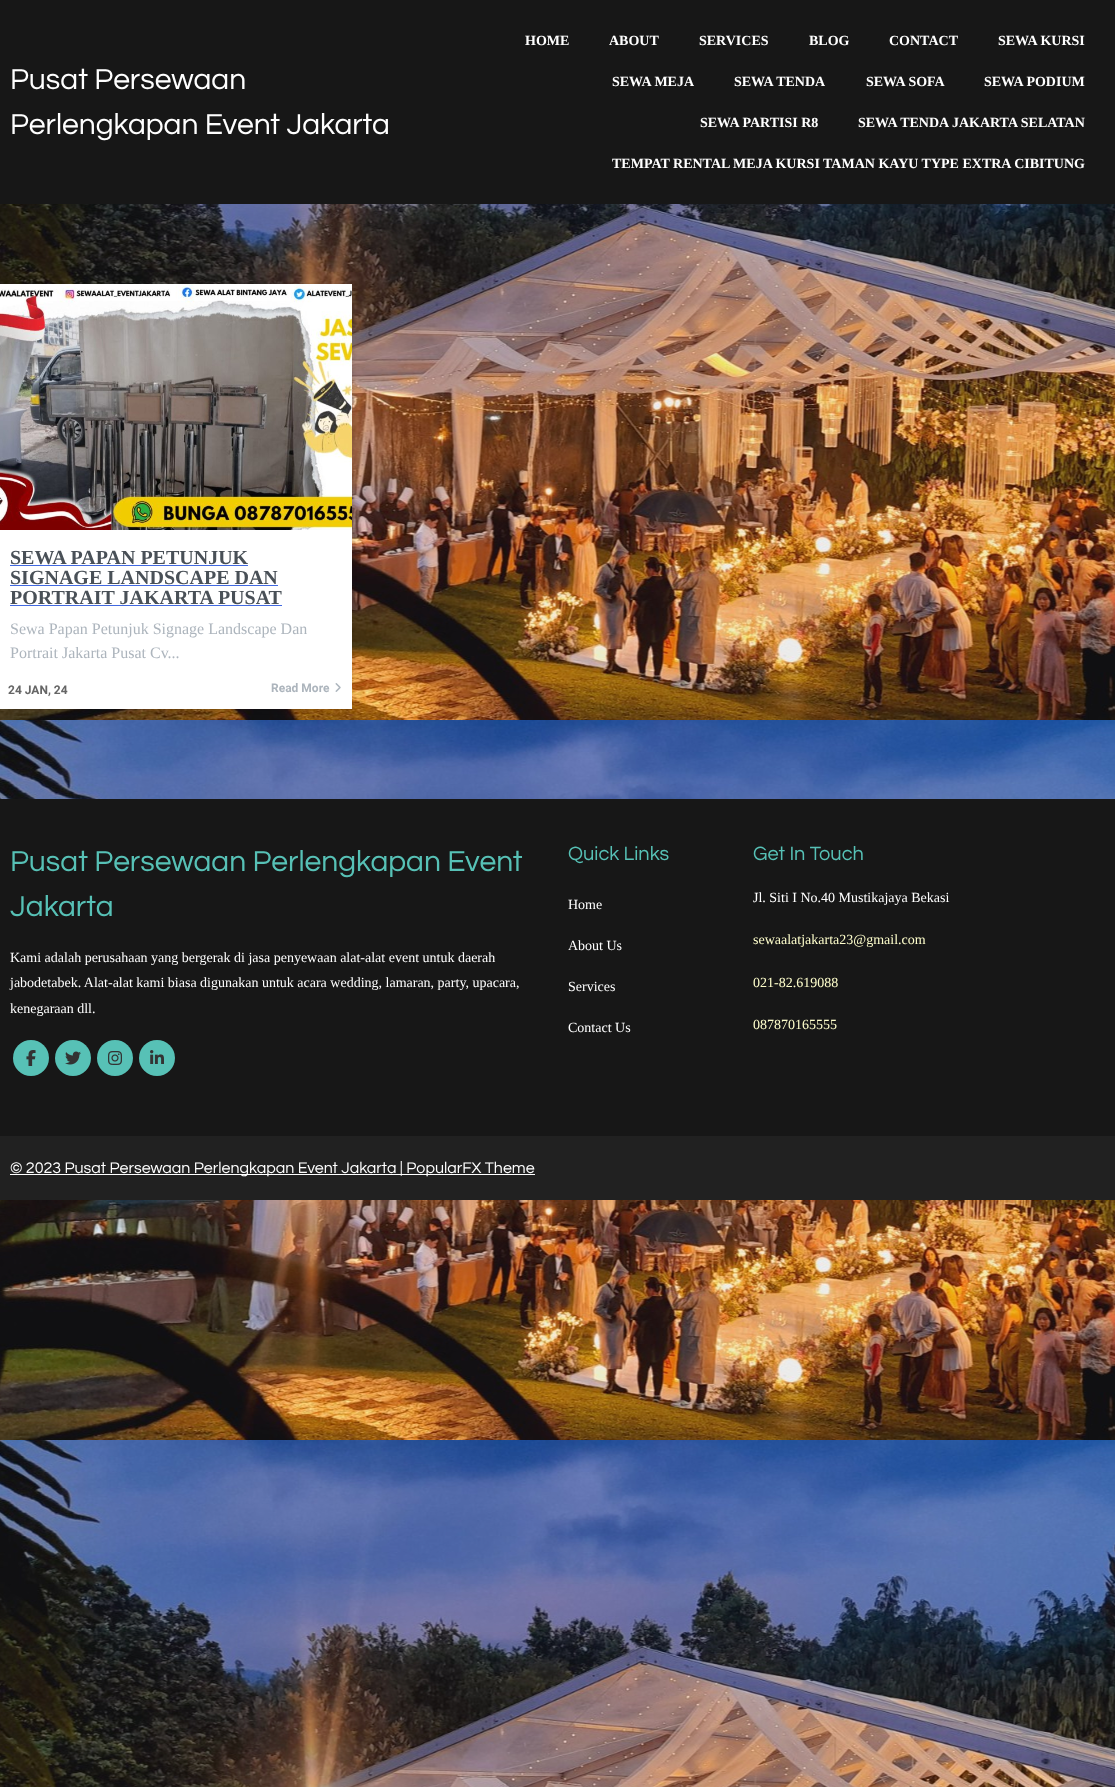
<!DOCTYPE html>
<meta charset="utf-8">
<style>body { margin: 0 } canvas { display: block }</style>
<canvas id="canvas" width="1115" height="1787"></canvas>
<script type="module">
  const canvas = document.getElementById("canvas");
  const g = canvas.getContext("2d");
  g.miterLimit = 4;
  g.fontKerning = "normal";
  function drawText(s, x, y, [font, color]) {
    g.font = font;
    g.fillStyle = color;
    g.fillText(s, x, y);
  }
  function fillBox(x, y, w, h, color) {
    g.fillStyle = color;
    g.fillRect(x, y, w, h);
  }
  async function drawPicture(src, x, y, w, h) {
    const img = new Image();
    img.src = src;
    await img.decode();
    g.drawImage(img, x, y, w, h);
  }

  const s1 = ["30px Questrial", "#FFFFFF"];
  const s2 = ["bold 14px Liberation Serif", "#FFFFFF"];
  const s3 = ["bold 20px Liberation Serif", "#495057"];
  const s4 = ["16px Liberation Serif", "#ADB5BD"];
  const s5 = ["bold 12px Roboto", "#666666"];
  const s6 = ["bold 12px Roboto", "#ADB5BD"];
  const s7 = ["30px Questrial", "#57C1B6"];
  const s8 = ["14px Liberation Serif", "#FFFFFF"];
  const s9 = ["20px Questrial", "#57C1B6"];
  const s10 = ["14px Liberation Serif", "#FFFFCC"];
  const s11 = ["16px Questrial", "#FFFFFF"];

  fillBox(0, 0, 1115, 1787, "#FFFFFF");
  await drawPicture("pic1.png", 0, 204, 1115, 1583);
  fillBox(0, 0, 1115, 204, "#171717");
  drawText("Pusat Persewaan", 10, 89, s1);
  drawText("Perlengkapan Event Jakarta", 10, 134, s1);
  drawText("HOME", 525, 45, s2);
  drawText("ABOUT", 609, 45, s2);
  drawText("SERVICES", 699, 45, s2);
  drawText("BLOG", 809, 45, s2);
  drawText("CONTACT", 889, 45, s2);
  drawText("SEWA KURSI", 998, 45, s2);
  drawText("SEWA MEJA", 612, 86, s2);
  drawText("SEWA TENDA", 734, 86, s2);
  drawText("SEWA SOFA", 866, 86, s2);
  drawText("SEWA PODIUM", 984, 86, s2);
  drawText("SEWA PARTISI R8", 700, 127, s2);
  drawText("SEWA TENDA JAKARTA SELATAN", 858, 127, s2);
  drawText("TEMPAT RENTAL MEJA KURSI TAMAN KAYU TYPE EXTRA CIBITUNG", 612, 168, s2);
  g.fillStyle = "rgba(0, 0, 0, 0.15)";
  g.filter = "blur(2.5px)";
  g.beginPath();
  g.rect(0, 285, 352, 425);
  g.fill();
  g.filter = "none";
  fillBox(0, 530, 352, 179, "#FFFFFF");
  await drawPicture("pic2.png", 0, 284, 352, 246);
  drawText("SEWA PAPAN PETUNJUK", 10, 564, s3);
  fillBox(10, 565, 238, 1, "#4169E1");
  drawText("SIGNAGE LANDSCAPE DAN", 10, 584, s3);
  fillBox(10, 585, 268, 1, "#4169E1");
  drawText("PORTRAIT JAKARTA PUSAT", 10, 604, s3);
  fillBox(10, 605, 272, 1, "#4169E1");
  drawText("Sewa Papan Petunjuk Signage Landscape Dan", 10, 634, s4);
  drawText("Portrait Jakarta Pusat Cv...", 10, 658, s4);
  drawText("24 JAN, 24", 8, 694, s5);
  drawText("Read More", 271, 692, s6);
  await drawPicture("pic3.png", 335, 683, 6, 9);
  fillBox(0, 799, 1115, 337, "#171717");
  drawText("Pusat Persewaan Perlengkapan Event", 10, 871, s7);
  drawText("Jakarta", 10, 916, s7);
  drawText("Kami adalah perusahaan yang bergerak di jasa penyewaan alat-alat event untuk daerah", 10, 962, s8);
  drawText("jabodetabek. Alat-alat kami biasa digunakan untuk acara wedding, lamaran, party, upacara,", 10, 987, s8);
  drawText("kenegaraan dll.", 10, 1013, s8);
  g.fillStyle = "#57C1B6";
  g.beginPath();
  g.arc(31, 1058, 18, 0, Math.PI * 2);
  g.fill();
  await drawPicture("pic4.png", 26, 1050, 10, 16);
  g.beginPath();
  g.arc(73, 1058, 18, 0, Math.PI * 2);
  g.fill();
  await drawPicture("pic5.png", 65, 1051, 16, 14);
  g.beginPath();
  g.arc(115, 1058, 18, 0, Math.PI * 2);
  g.fill();
  await drawPicture("pic6.png", 108, 1051, 14, 14);
  g.beginPath();
  g.arc(157, 1058, 18, 0, Math.PI * 2);
  g.fill();
  await drawPicture("pic7.png", 150, 1050, 14, 14);
  drawText("Quick Links", 568, 860, s9);
  drawText("Home", 568, 909, s8);
  drawText("About Us", 568, 950, s8);
  drawText("Services", 568, 991, s8);
  drawText("Contact Us", 568, 1032, s8);
  drawText("Get In Touch", 753, 860, s9);
  drawText("Jl. Siti I No.40 Mustikajaya Bekasi", 753, 902, s8);
  drawText("sewaalatjakarta23@gmail.com", 753, 944, s10);
  drawText("021-82.619088", 753, 987, s10);
  drawText("087870165555", 753, 1029, s10);
  fillBox(0, 1136, 1115, 64, "#212121");
  fillBox(10, 1174, 525, 1, "#FFFFFF");
  drawText("© 2023 Pusat Persewaan Perlengkapan Event Jakarta | PopularFX Theme", 10, 1173, s11);
</script>
